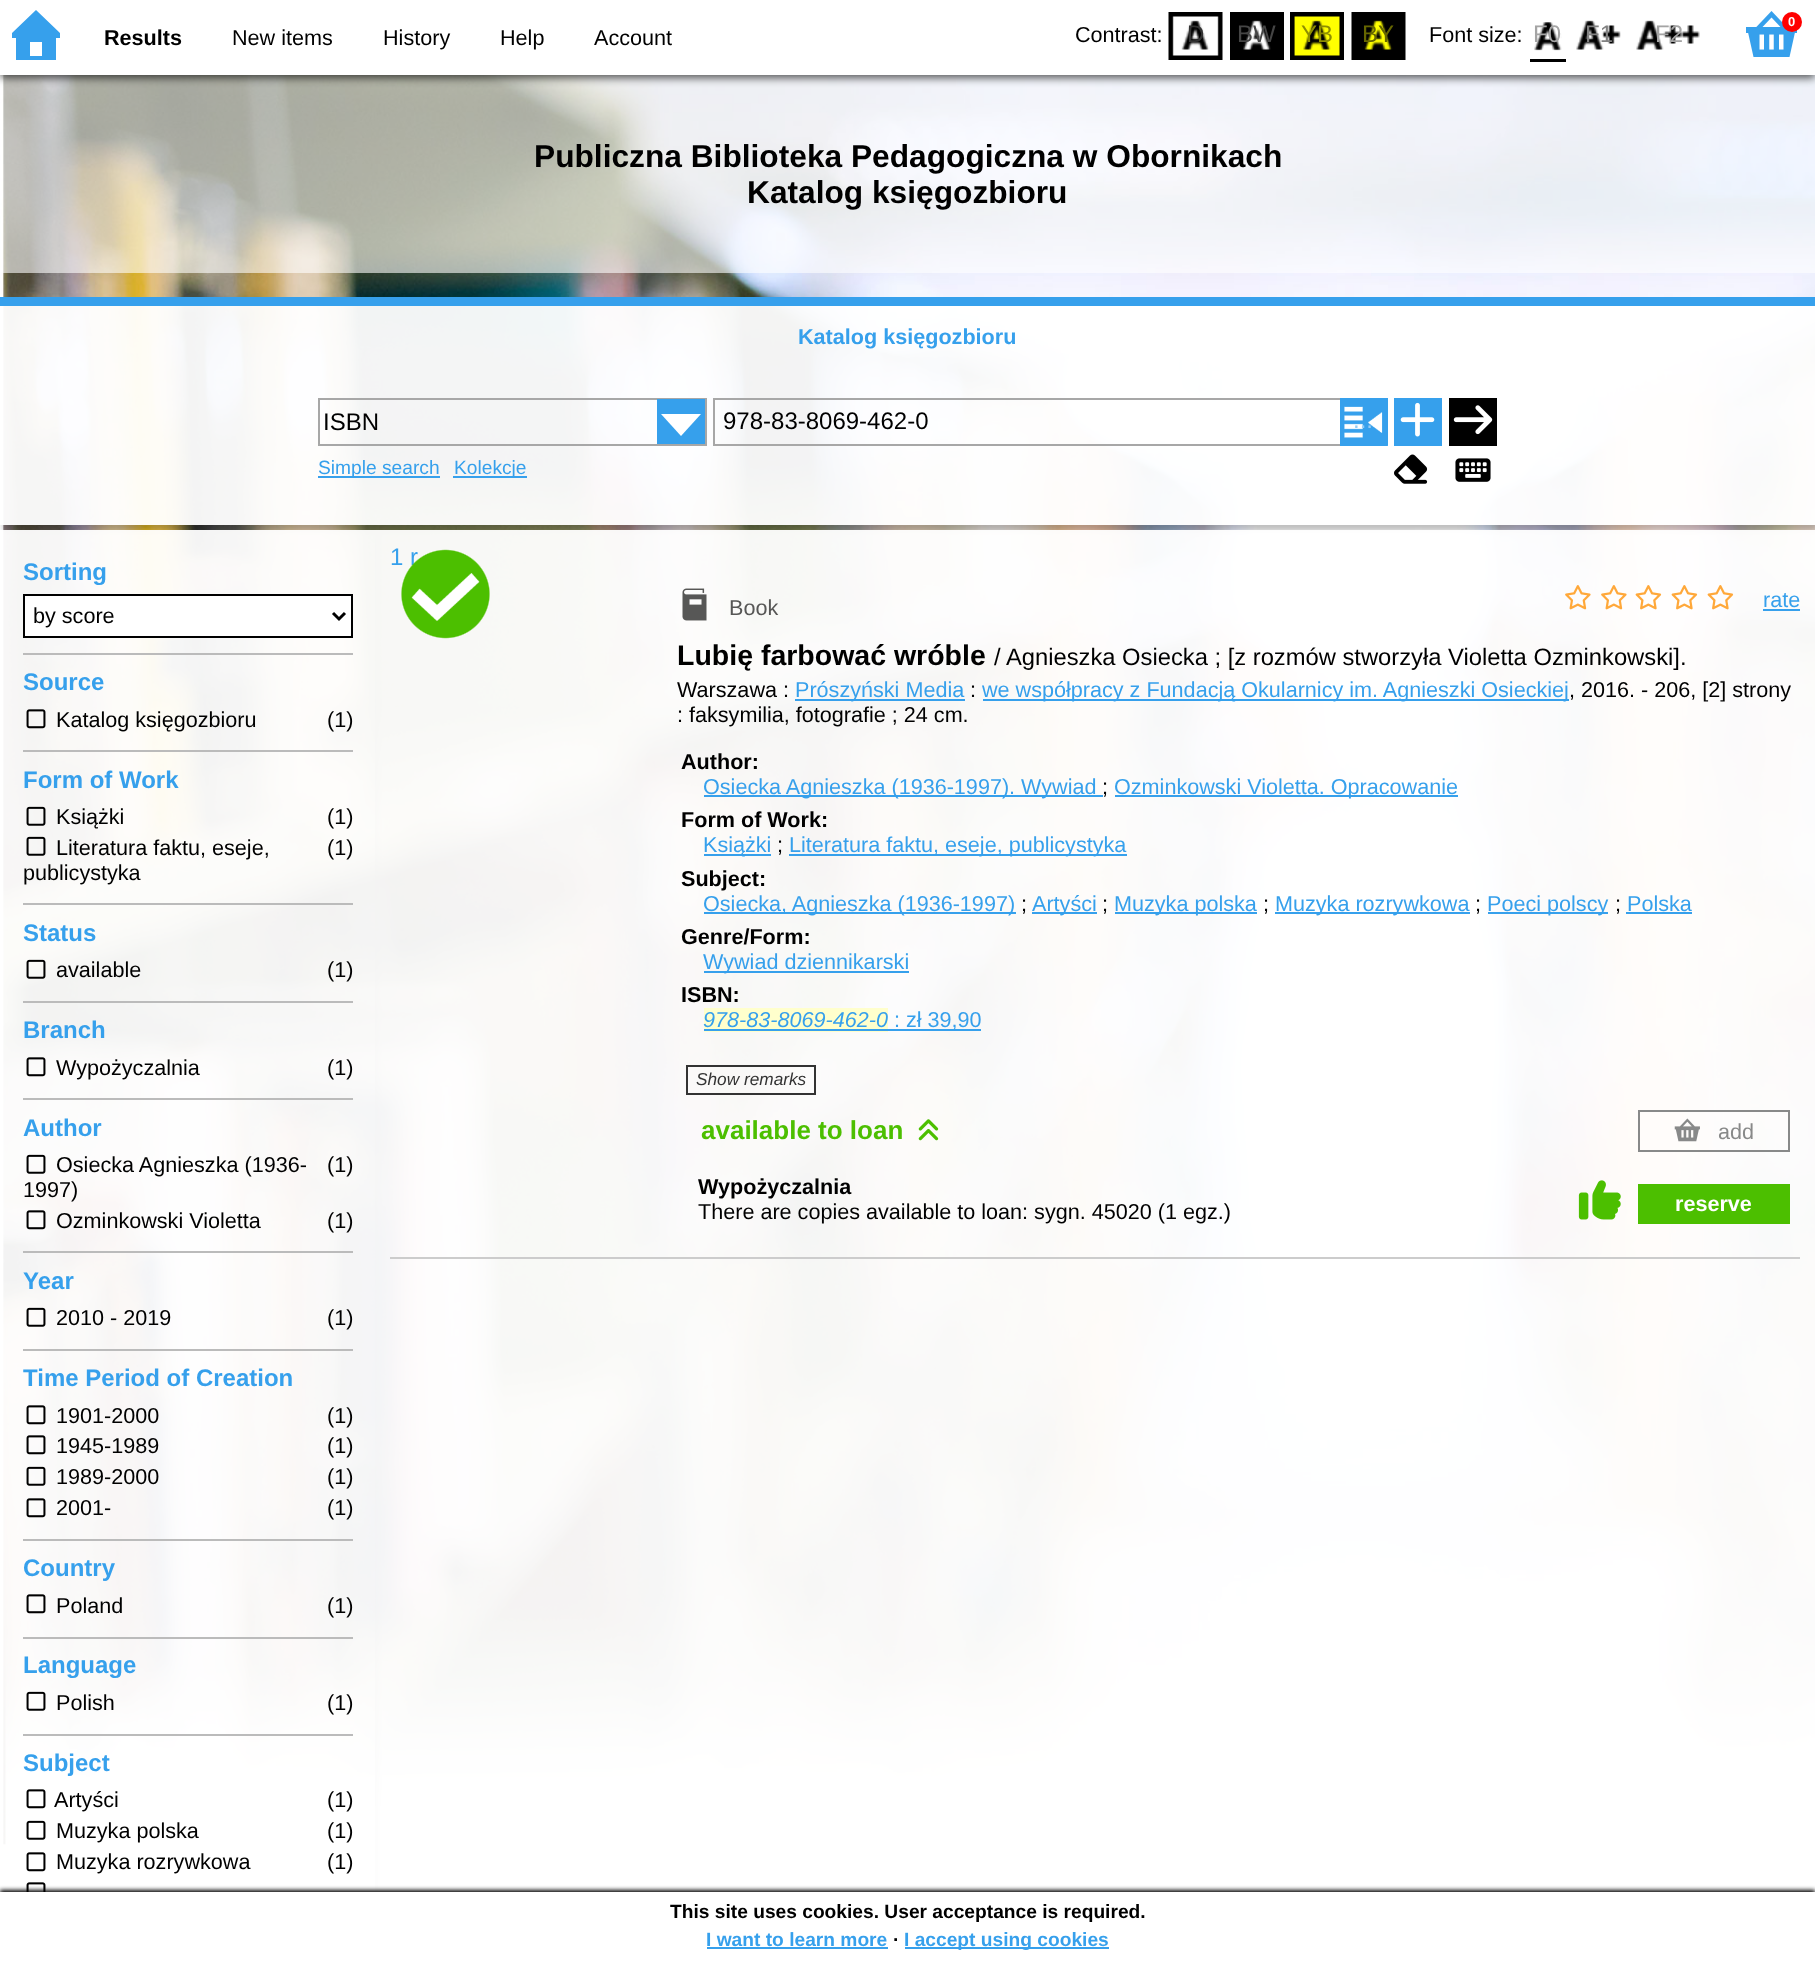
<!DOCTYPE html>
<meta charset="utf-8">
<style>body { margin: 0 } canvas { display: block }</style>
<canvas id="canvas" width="1815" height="1965"></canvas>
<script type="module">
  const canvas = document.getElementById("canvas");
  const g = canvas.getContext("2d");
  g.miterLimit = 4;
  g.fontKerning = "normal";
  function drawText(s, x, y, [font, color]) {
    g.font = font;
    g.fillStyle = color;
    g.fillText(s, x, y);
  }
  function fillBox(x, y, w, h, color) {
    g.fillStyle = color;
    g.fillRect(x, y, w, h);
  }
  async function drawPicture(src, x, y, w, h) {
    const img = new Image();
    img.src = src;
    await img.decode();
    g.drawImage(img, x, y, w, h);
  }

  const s1 = ["bold 21.6px Liberation Sans", "#000000"];
  const s2 = ["21.6px Liberation Sans", "#000000"];
  const s3 = ["bold 13px Liberation Sans", "#FFFFFF"];
  const s4 = ["24px Liberation Sans", "#333333"];
  const s5 = ["24px Liberation Sans", "#454545"];
  const s6 = ["24px Liberation Sans", "#8E8E00"];
  const s7 = ["24px Liberation Sans", "#666600"];
  const s8 = ["24px Liberation Sans", "#A4A4A4"];
  const s9 = ["24px Liberation Sans", "#818181"];
  const s10 = ["bold 31.7px Liberation Sans", "#000000"];
  const s11 = ["bold 21.6px Liberation Sans", "#36A0EC"];
  const s12 = ["24px Liberation Sans", "#000000"];
  const s13 = ["24px Liberation Sans", "#94CCF5"];
  const s14 = ["19.2px Liberation Sans", "#36A0EC"];
  const s15 = ["bold 24px Liberation Sans", "#36A0EC"];
  const s16 = ["24px Liberation Sans", "#36A0EC"];
  const s17 = ["21.6px Liberation Sans", "#575756"];
  const s18 = ["21.6px Liberation Sans", "#36A0EC"];
  const s19 = ["bold 28.5px Liberation Sans", "#000000"];
  const s20 = ["23.75px Liberation Sans", "#000000"];
  const s21 = ["italic 21.6px Liberation Sans", "#36A0EC"];
  const s22 = ["italic 17.25px Liberation Sans", "#333333"];
  const s23 = ["bold 26px Liberation Sans", "#4CBF00"];
  const s24 = ["21.6px Liberation Sans", "#888989"];
  const s25 = ["bold 21.6px Liberation Sans", "#FFFFFF"];
  const s26 = ["bold 19.2px Liberation Sans", "#000000"];
  const s27 = ["bold 19.2px Liberation Sans", "#36A0EC"];

  fillBox(0, 0, 1815, 1965, "#FFFFFF");
  await drawPicture("pic1.png", 0, 75, 1815, 1771);
  fillBox(0, 75, 1815, 198, "rgba(255, 255, 255, 0.6)");
  g.fillStyle = "rgba(0, 0, 0, 0.65)";
  g.filter = "blur(4.5px)";
  g.beginPath();
  g.rect(0, 3, 1815, 75);
  g.fill();
  g.filter = "none";
  fillBox(0, 0, 1815, 75, "#FFFFFF");
  g.fillStyle = "#36A0EC";
  g.beginPath();
  g.moveTo(60, 38);
  g.lineTo(56, 38);
  g.lineTo(56, 60);
  g.lineTo(16, 60);
  g.lineTo(16, 38);
  g.lineTo(12, 38);
  g.lineTo(12, 33);
  g.lineTo(36, 10);
  g.lineTo(60, 33);
  g.closePath();
  g.moveTo(42, 56);
  g.lineTo(42, 42);
  g.lineTo(30, 42);
  g.lineTo(30, 56);
  g.closePath();
  g.fill();
  drawText("Results", 104, 45, s1);
  drawText("New items", 232, 45, s2);
  drawText("History", 383, 45, s2);
  drawText("Help", 500, 45, s2);
  drawText("Account", 594, 45, s2);
  await drawPicture("pic2.png", 1746, 11, 51, 46);
  g.fillStyle = "#FF0000";
  g.beginPath();
  g.arc(1792, 22, 10, 0, Math.PI * 2);
  g.fill();
  drawText("0", 1788, 26, s3);
  drawText("Contrast:", 1075, 42, s2);
  await drawPicture("pic3.png", 1168, 12, 55, 48);
  drawText("D", 1187, 42, s4);
  await drawPicture("pic4.png", 1230, 12, 54, 48);
  drawText("BW", 1237, 42, s5);
  await drawPicture("pic5.png", 1290, 12, 54, 48);
  drawText("YB", 1301, 42, s6);
  await drawPicture("pic6.png", 1351, 12, 55, 48);
  drawText("BY", 1362, 42, s7);
  drawText("Font size:", 1429, 42, s2);
  await drawPicture("pic7.png", 1534, 22, 28, 29);
  fillBox(1530, 59, 36, 3, "#000000");
  drawText("F0", 1533, 42, s8);
  await drawPicture("pic8.png", 1576, 20, 45, 30);
  drawText("F1", 1585, 42, s9);
  await drawPicture("pic9.png", 1636, 20, 64, 30);
  drawText("F2", 1655, 42, s8);
  drawText("Publiczna Biblioteka Pedagogiczna w Obornikach", 534, 167, s10);
  drawText("Katalog księgozbioru", 747, 203, s10);
  g.save();
  g.beginPath();
  g.rect(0, 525, 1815, 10);
  g.clip();
  g.fillStyle = "rgba(0, 0, 0, 0.25)";
  g.filter = "blur(3px)";
  g.beginPath();
  g.rect(3, 303, 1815, 228);
  g.fill();
  g.filter = "none";
  g.restore();
  fillBox(0, 306, 1815, 219, "rgba(255, 255, 255, 0.95)");
  fillBox(0, 297, 1815, 9, "#36A0EC");
  drawText("Katalog księgozbioru", 798, 344, s11);
  g.strokeStyle = "#A7A7A7";
  g.lineWidth = 2;
  g.strokeRect(319, 399, 387, 46);
  drawText("ISBN", 323, 430, s12);
  fillBox(657, 399, 48, 45, "#36A0EC");
  g.fillStyle = "#FFFFFF";
  g.beginPath();
  g.moveTo(701, 414);
  g.lineTo(681, 436);
  g.lineTo(661, 414);
  g.closePath();
  g.fill();
  g.strokeRect(714, 399, 673, 46);
  drawText("978-83-8069-462-0", 723, 429, s12);
  fillBox(1340, 398, 48, 48, "#36A0EC");
  await drawPicture("pic10.png", 1344, 406, 44, 40);
  drawText("...", 1353, 428, s13);
  fillBox(1394, 398, 48, 48, "#36A0EC");
  await drawPicture("pic11.png", 1400, 402, 35, 35);
  fillBox(1449, 398, 48, 48, "#000000");
  await drawPicture("pic12.png", 1453, 405, 40, 30);
  fillBox(318, 476, 122, 2, "#36A0EC");
  drawText("Simple search", 318, 474, s14);
  fillBox(453, 476, 74, 2, "#36A0EC");
  drawText("Kolekcje", 454, 474, s14);
  await drawPicture("pic13.png", 1394, 454, 34, 30);
  await drawPicture("pic14.png", 1455, 458, 36, 24);
  g.save();
  g.beginPath();
  g.rect(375, 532, 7, 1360);
  g.clip();
  g.fillStyle = "rgba(0, 0, 0, 0.25)";
  g.filter = "blur(3px)";
  g.beginPath();
  g.rect(3, 536, 375, 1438);
  g.fill();
  g.filter = "none";
  g.restore();
  fillBox(0, 530, 375, 1316, "rgba(255, 255, 255, 0.95)");
  fillBox(23, 653, 330, 2, "#BBBBBB");
  drawText("Sorting", 23, 580, s15);
  g.fillStyle = "#FFFFFF";
  g.beginPath();
  g.rect(24, 595, 328, 42);
  g.fill();
  g.strokeStyle = "#000000";
  g.stroke();
  g.beginPath();
  g.moveTo(333, 613);
  g.lineTo(339, 619);
  g.lineTo(345, 613);
  g.lineWidth = 3;
  g.stroke();
  drawText("by score", 33, 623, s2);
  fillBox(23, 750, 330, 2, "#BBBBBB");
  drawText("Source", 23, 690, s15);
  await drawPicture("pic15.png", 26, 709, 20, 20);
  drawText("Katalog księgozbioru", 56, 727, s2);
  drawText("(1)", 327, 727, s2);
  fillBox(23, 903, 330, 2, "#BBBBBB");
  drawText("Form of Work", 23, 788, s15);
  await drawPicture("pic16.png", 26, 806, 20, 20);
  drawText("Książki", 56, 824, s2);
  drawText("(1)", 327, 824, s2);
  await drawPicture("pic17.png", 26, 836, 20, 20);
  drawText("Literatura faktu, eseje,", 56, 855, s2);
  drawText("publicystyka", 23, 880, s2);
  drawText("(1)", 327, 855, s2);
  fillBox(23, 1001, 330, 2, "#BBBBBB");
  drawText("Status", 23, 941, s15);
  await drawPicture("pic18.png", 26, 959, 20, 20);
  drawText("available", 56, 977, s2);
  drawText("(1)", 327, 977, s2);
  fillBox(23, 1098, 330, 2, "#BBBBBB");
  drawText("Branch", 23, 1038, s15);
  await drawPicture("pic19.png", 26, 1057, 20, 20);
  drawText("Wypożyczalnia", 56, 1075, s2);
  drawText("(1)", 327, 1075, s2);
  fillBox(23, 1251, 330, 2, "#BBBBBB");
  drawText("Author", 23, 1136, s15);
  await drawPicture("pic20.png", 26, 1154, 20, 20);
  drawText("Osiecka Agnieszka (1936-", 56, 1172, s2);
  drawText("1997)", 23, 1197, s2);
  drawText("(1)", 327, 1172, s2);
  await drawPicture("pic21.png", 26, 1210, 20, 20);
  drawText("Ozminkowski Violetta", 56, 1228, s2);
  drawText("(1)", 327, 1228, s2);
  fillBox(23, 1349, 330, 2, "#BBBBBB");
  drawText("Year", 23, 1289, s15);
  await drawPicture("pic22.png", 26, 1307, 20, 20);
  drawText("2010 - 2019", 56, 1325, s2);
  drawText("(1)", 327, 1325, s2);
  fillBox(23, 1539, 330, 2, "#BBBBBB");
  drawText("Time Period of Creation", 23, 1386, s15);
  await drawPicture("pic23.png", 26, 1405, 20, 20);
  drawText("1901-2000", 56, 1423, s2);
  drawText("(1)", 327, 1423, s2);
  await drawPicture("pic24.png", 26, 1435, 20, 20);
  drawText("1945-1989", 56, 1453, s2);
  drawText("(1)", 327, 1453, s2);
  await drawPicture("pic25.png", 26, 1466, 20, 20);
  drawText("1989-2000", 56, 1484, s2);
  drawText("(1)", 327, 1484, s2);
  await drawPicture("pic26.png", 26, 1498, 20, 20);
  drawText("2001-", 56, 1515, s2);
  drawText("(1)", 327, 1515, s2);
  fillBox(23, 1637, 330, 2, "#BBBBBB");
  drawText("Country", 23, 1576, s15);
  await drawPicture("pic27.png", 26, 1594, 20, 20);
  drawText("Poland", 56, 1613, s2);
  drawText("(1)", 327, 1613, s2);
  fillBox(23, 1734, 330, 2, "#BBBBBB");
  drawText("Language", 23, 1673, s15);
  await drawPicture("pic28.png", 26, 1691, 20, 20);
  drawText("Polish", 56, 1710, s2);
  drawText("(1)", 327, 1710, s2);
  drawText("Subject", 23, 1771, s15);
  await drawPicture("pic29.png", 26, 1789, 20, 20);
  drawText("Artyści", 54, 1807, s2);
  drawText("(1)", 327, 1807, s2);
  await drawPicture("pic30.png", 26, 1820, 20, 20);
  drawText("Muzyka polska", 56, 1838, s2);
  drawText("(1)", 327, 1838, s2);
  await drawPicture("pic29.png", 26, 1852, 20, 20);
  drawText("Muzyka rozrywkowa", 56, 1869, s2);
  drawText("(1)", 327, 1869, s2);
  await drawPicture("pic31.png", 26, 1882, 20, 10);
  fillBox(375, 530, 1440, 1362, "rgba(255, 255, 255, 0.95)");
  drawText("1 r", 390, 565, s16);
  fillBox(390, 1257, 1410, 2, "#CCCCCC");
  await drawPicture("pic32.png", 401, 549, 89, 90);
  await drawPicture("pic33.png", 682, 588, 25, 33);
  drawText("Book", 729, 615, s17);
  await drawPicture("pic34.png", 1565, 585, 26, 25);
  await drawPicture("pic35.png", 1601, 585, 26, 25);
  await drawPicture("pic36.png", 1635, 585, 27, 25);
  await drawPicture("pic37.png", 1671, 585, 27, 25);
  await drawPicture("pic38.png", 1707, 585, 27, 25);
  drawText("rate", 1763, 607, s18);
  fillBox(1763, 609, 37, 2, "#36A0EC");
  drawText("Lubię farbować wróble", 677, 665, s19);
  drawText("/ Agnieszka Osiecka ; [z rozmów stworzyła Violetta Ozminkowski].", 994, 665, s20);
  drawText("Warszawa :", 677, 697, s2);
  fillBox(795, 699, 170, 2, "#36A0EC");
  drawText("Prószyński Media", 795, 697, s18);
  drawText(":", 970, 697, s2);
  fillBox(983, 699, 586, 2, "#36A0EC");
  drawText("we współpracy z Fundacją Okularnicy im. Agnieszki Osieckiej", 982, 697, s18);
  drawText(", 2016. - 206, [2] strony", 1569, 697, s2);
  drawText(": faksymilia, fotografie ; 24 cm.", 677, 722, s2);
  drawText("Author:", 681, 769, s1);
  fillBox(704, 795, 399, 2, "#36A0EC");
  drawText("Osiecka Agnieszka (1936-1997). Wywiad", 703, 794, s18);
  drawText(";", 1102, 794, s2);
  fillBox(1115, 795, 343, 2, "#36A0EC");
  drawText("Ozminkowski Violetta. Opracowanie", 1114, 794, s18);
  drawText("Form of Work:", 681, 827, s1);
  fillBox(704, 854, 67, 2, "#36A0EC");
  drawText("Książki", 703, 852, s18);
  drawText(";", 777, 852, s2);
  fillBox(789, 854, 338, 2, "#36A0EC");
  drawText("Literatura faktu, eseje, publicystyka", 789, 852, s18);
  drawText("Subject:", 681, 886, s1);
  fillBox(704, 912, 312, 2, "#36A0EC");
  drawText("Osiecka, Agnieszka (1936-1997)", 703, 911, s18);
  drawText(";", 1021, 911, s2);
  fillBox(1032, 912, 65, 2, "#36A0EC");
  drawText("Artyści", 1032, 911, s18);
  drawText(";", 1102, 911, s2);
  fillBox(1115, 912, 142, 2, "#36A0EC");
  drawText("Muzyka polska", 1114, 911, s18);
  drawText(";", 1263, 911, s2);
  fillBox(1275, 912, 195, 2, "#36A0EC");
  drawText("Muzyka rozrywkowa", 1275, 911, s18);
  drawText(";", 1475, 911, s2);
  fillBox(1488, 912, 120, 2, "#36A0EC");
  drawText("Poeci polscy", 1487, 911, s18);
  drawText(";", 1615, 911, s2);
  drawText("Polska", 1627, 911, s18);
  fillBox(1626, 912, 66, 2, "#36A0EC");
  drawText("Genre/Form:", 681, 944, s1);
  fillBox(704, 971, 205, 2, "#36A0EC");
  drawText("Wywiad dziennikarski", 703, 969, s18);
  drawText("ISBN:", 681, 1002, s1);
  fillBox(704, 1008, 184, 24, "#FFFFCC");
  drawText("978-83-8069-462-0", 703, 1027, s21);
  fillBox(704, 1029, 277, 2, "#36A0EC");
  drawText(": zł 39,90", 894, 1027, s18);
  g.strokeStyle = "#333333";
  g.lineWidth = 2;
  g.strokeRect(687, 1066, 128, 28);
  drawText("Show remarks", 696, 1085, s22);
  drawText("available to loan", 701, 1139, s23);
  await drawPicture("pic39.png", 918, 1119, 21, 22);
  g.strokeStyle = "#888989";
  g.strokeRect(1639, 1111, 150, 40);
  await drawPicture("pic40.png", 1674, 1118, 26, 24);
  drawText("add", 1718, 1139, s24);
  drawText("Wypożyczalnia", 698, 1194, s1);
  drawText("There are copies available to loan: sygn. 45020 (1 egz.)", 698, 1219, s2);
  await drawPicture("pic41.png", 1578, 1180, 43, 40);
  fillBox(1638, 1184, 152, 40, "#4CBF00");
  drawText("reserve", 1675, 1211, s25);
  g.fillStyle = "#000000";
  g.filter = "blur(2px)";
  g.beginPath();
  g.rect(0, 1890, 1815, 74);
  g.fill();
  g.filter = "none";
  fillBox(0, 1892, 1815, 73, "#FFFFFF");
  drawText("This site uses cookies. User acceptance is required.", 670, 1918, s26);
  drawText("I want to learn more", 706, 1946, s27);
  fillBox(707, 1947, 181, 2, "#36A0EC");
  drawText("∙", 893, 1946, s26);
  fillBox(905, 1947, 204, 2, "#36A0EC");
  drawText("I accept using cookies", 904, 1946, s27);
</script>
